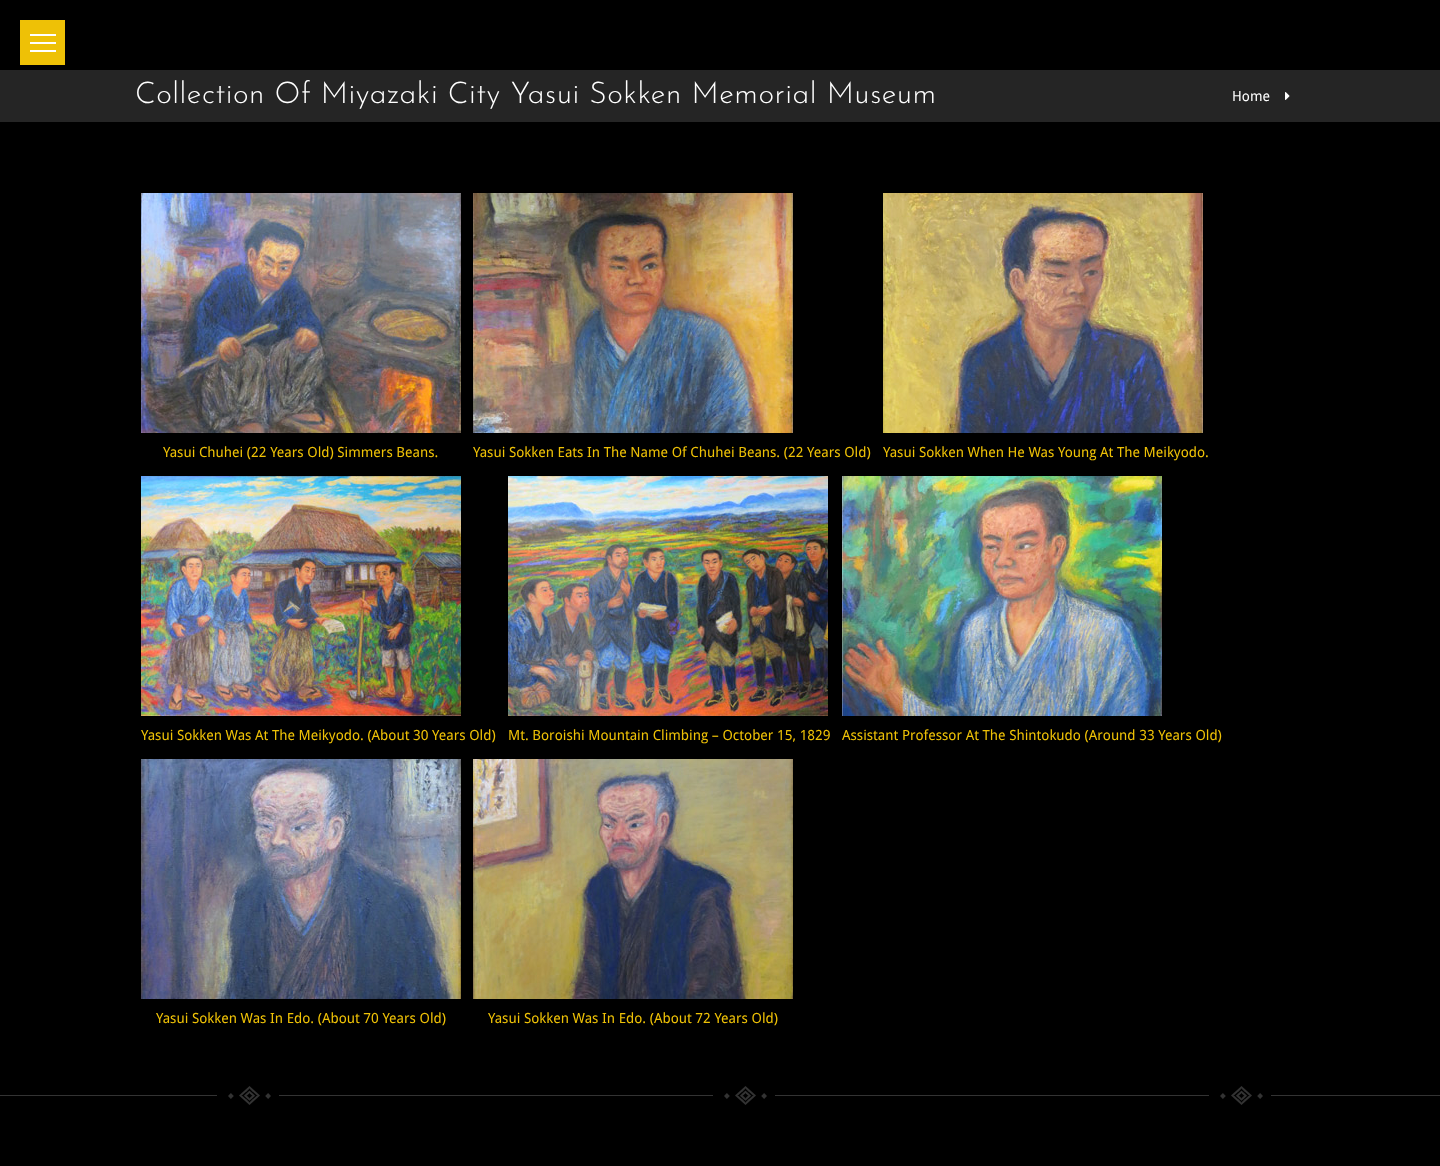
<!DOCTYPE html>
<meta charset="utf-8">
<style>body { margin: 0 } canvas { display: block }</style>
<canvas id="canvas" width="1440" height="1166"></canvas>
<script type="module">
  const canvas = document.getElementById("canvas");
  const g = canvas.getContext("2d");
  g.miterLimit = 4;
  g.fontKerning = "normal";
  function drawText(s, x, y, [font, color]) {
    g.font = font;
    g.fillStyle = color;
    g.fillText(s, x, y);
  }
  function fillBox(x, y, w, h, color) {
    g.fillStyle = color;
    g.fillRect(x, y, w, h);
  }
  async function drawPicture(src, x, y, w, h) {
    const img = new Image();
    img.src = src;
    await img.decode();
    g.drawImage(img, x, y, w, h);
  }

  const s1 = ["300 30px Josefin Sans", "#FFFFFF"];
  const s2 = ["14px Droid Sans", "#FFFFFF"];
  const s3 = ["14px Droid Sans", "#EEC106"];

  fillBox(0, 0, 1440, 1166, "#000000");
  fillBox(20, 20, 45, 45, "#EEC106");
  fillBox(30, 34, 26, 2, "#FFFFFF");
  fillBox(30, 50, 26, 2, "#FFFFFF");
  fillBox(30, 42, 26, 2, "#FFFFFF");
  fillBox(0, 70, 1440, 52, "#252525");
  g.letterSpacing = "0.5px";
  drawText("Collection Of Miyazaki City Yasui Sokken Memorial Museum", 135, 103, s1);
  g.letterSpacing = "0px";
  drawText("Home", 1232, 101, s2);
  await drawPicture("pic1.png", 1285, 92, 5, 8);
  await drawPicture("pic2.png", 141, 193, 320, 240);
  drawText("Yasui Chuhei (22 Years Old) Simmers Beans.", 163, 457, s3);
  await drawPicture("pic3.png", 473, 193, 320, 240);
  drawText("Yasui Sokken Eats In The Name Of Chuhei Beans. (22 Years Old)", 473, 457, s3);
  await drawPicture("pic4.png", 883, 193, 320, 240);
  drawText("Yasui Sokken When He Was Young At The Meikyodo.", 883, 457, s3);
  await drawPicture("pic5.png", 141, 476, 320, 240);
  drawText("Yasui Sokken Was At The Meikyodo. (About 30 Years Old)", 141, 740, s3);
  await drawPicture("pic6.png", 508, 476, 320, 240);
  drawText("Mt. Boroishi Mountain Climbing – October 15, 1829", 508, 740, s3);
  await drawPicture("pic7.png", 842, 476, 320, 240);
  drawText("Assistant Professor At The Shintokudo (Around 33 Years Old)", 842, 740, s3);
  await drawPicture("pic8.png", 141, 759, 320, 240);
  drawText("Yasui Sokken Was In Edo. (About 70 Years Old)", 156, 1023, s3);
  await drawPicture("pic9.png", 473, 759, 320, 240);
  drawText("Yasui Sokken Was In Edo. (About 72 Years Old)", 488, 1023, s3);
  await drawPicture("pic10.png", 0, 1086, 1440, 19);
</script>
